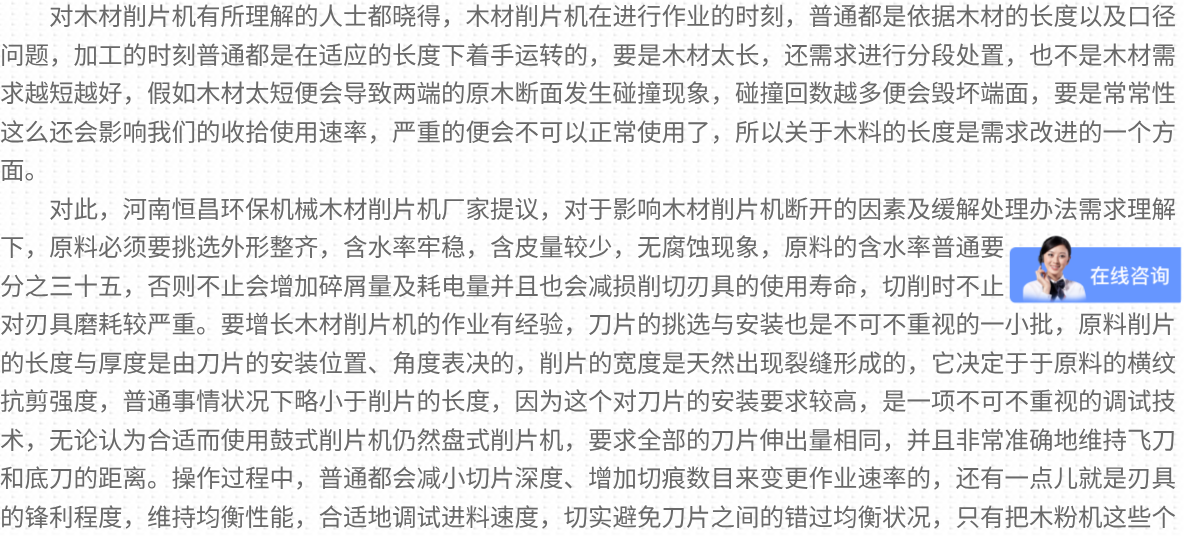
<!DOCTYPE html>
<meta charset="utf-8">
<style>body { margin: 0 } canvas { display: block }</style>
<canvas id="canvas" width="1184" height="536"></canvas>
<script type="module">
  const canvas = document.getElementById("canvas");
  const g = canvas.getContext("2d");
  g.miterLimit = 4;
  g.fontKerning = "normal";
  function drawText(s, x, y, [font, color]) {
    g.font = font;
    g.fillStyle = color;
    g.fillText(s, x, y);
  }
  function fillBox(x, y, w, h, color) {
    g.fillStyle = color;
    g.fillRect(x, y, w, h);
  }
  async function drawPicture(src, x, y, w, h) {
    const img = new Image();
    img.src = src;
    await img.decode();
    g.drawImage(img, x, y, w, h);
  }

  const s1 = ["24.5px Noto Sans CJK SC", "#696969"];

  fillBox(0, 0, 1184, 536, "#FFFFFF");
  await drawPicture("pic1.png", 0, 0, 1184, 536);
  drawText("对木材削片机有所理解的人士都晓得，木材削片机在进行作业的时刻，普通都是依据木材的长度以及口径", 49, 25, s1);
  drawText("问题，加工的时刻普通都是在适应的长度下着手运转的，要是木材太长，还需求进行分段处置，也不是木材需", 0, 64, s1);
  drawText("求越短越好，假如木材太短便会导致两端的原木断面发生碰撞现象，碰撞回数越多便会毁坏端面，要是常常性", 0, 102, s1);
  drawText("这么还会影响我们的收拾使用速率，严重的便会不可以正常使用了，所以关于木料的长度是需求改进的一个方", 0, 141, s1);
  drawText("面。", 0, 179, s1);
  drawText("对此，河南恒昌环保机械木材削片机厂家提议，对于影响木材削片机断开的因素及缓解处理办法需求理解", 49, 218, s1);
  drawText("下，原料必须要挑选外形整齐，含水率牢稳，含皮量较少，无腐蚀现象，原料的含水率普通要", 0, 256, s1);
  drawText("分之三十五，否则不止会增加碎屑量及耗电量并且也会减损削切刃具的使用寿命，切削时不止", 0, 295, s1);
  drawText("对刃具磨耗较严重。要增长木材削片机的作业有经验，刀片的挑选与安装也是不可不重视的一小批，原料削片", 0, 333, s1);
  drawText("的长度与厚度是由刀片的安装位置、角度表决的，削片的宽度是天然出现裂缝形成的，它决定于于原料的横纹", 0, 372, s1);
  drawText("抗剪强度，普通事情状况下略小于削片的长度，因为这个对刀片的安装要求较高，是一项不可不重视的调试技", 0, 410, s1);
  drawText("术，无论认为合适而使用鼓式削片机仍然盘式削片机，要求全部的刀片伸出量相同，并且非常准确地维持飞刀", 0, 449, s1);
  drawText("和底刀的距离。操作过程中，普通都会减小切片深度、增加切痕数目来变更作业速率的，还有一点儿就是刃具", 0, 487, s1);
  drawText("的锋利程度，维持均衡性能，合适地调试进料速度，切实避免刀片之间的错过均衡状况，只有把木粉机这些个", 0, 526, s1);
  await drawPicture("pic2.png", 1009, 235, 173, 69);
</script>
